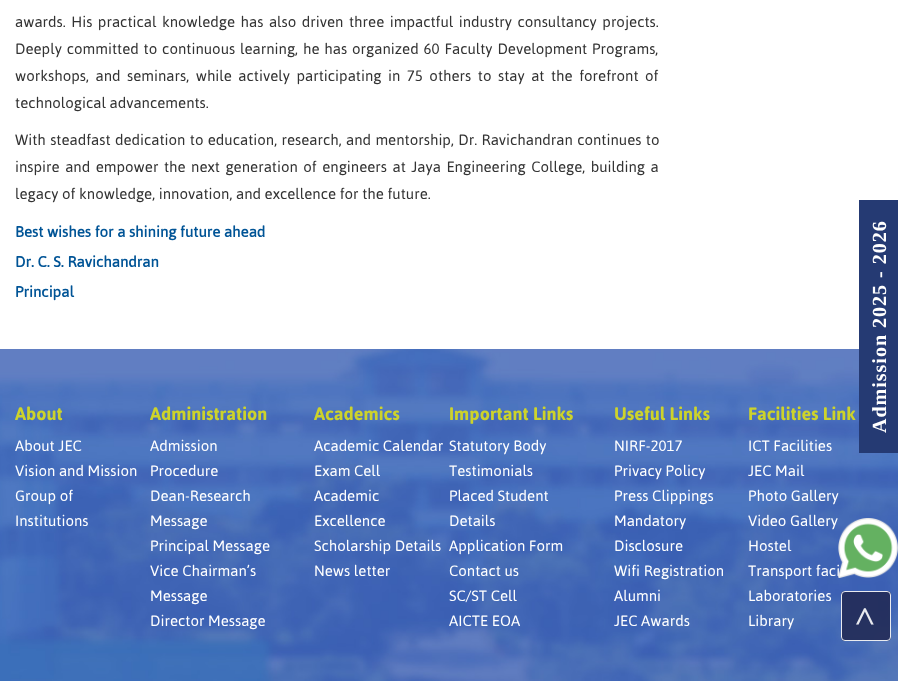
<!DOCTYPE html>
<meta charset="utf-8">
<style>body { margin: 0 } canvas { display: block }</style>
<canvas id="canvas" width="898" height="681"></canvas>
<script type="module">
  const canvas = document.getElementById("canvas");
  const g = canvas.getContext("2d");
  g.miterLimit = 4;
  g.fontKerning = "normal";
  function drawText(s, x, y, [font, color]) {
    g.font = font;
    g.fillStyle = color;
    g.fillText(s, x, y);
  }
  function fillBox(x, y, w, h, color) {
    g.fillStyle = color;
    g.fillRect(x, y, w, h);
  }
  function fillRounded(x, y, w, h, r, color) {
    g.fillStyle = color;
    g.beginPath();
    g.roundRect(x, y, w, h, r);
    g.fill();
  }
  async function drawPicture(src, x, y, w, h) {
    const img = new Image();
    img.src = src;
    await img.decode();
    g.drawImage(img, x, y, w, h);
  }

  const s1 = ["15px Asap", "#333333"];
  const s2 = ["bold 15px Asap", "#005496"];
  const s3 = ["bold 18px 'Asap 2'", "#CDD32B"];
  const s4 = ["15px Asap", "#FFFFFF"];
  const s5 = ["bold 35px Liberation Serif", "#E9EAEF"];

  fillBox(0, 0, 898, 681, "#FFFFFF");
  g.wordSpacing = "1.9px";
  drawText("awards. His practical knowledge has also driven three impactful industry consultancy projects.", 15, 27, s1);
  g.wordSpacing = "1.25px";
  drawText("Deeply committed to continuous learning, he has organized 60 Faculty Development Programs,", 15, 54, s1);
  g.wordSpacing = "2.9px";
  drawText("workshops, and seminars, while actively participating in 75 others to stay at the forefront of", 15, 81, s1);
  g.wordSpacing = "0px";
  drawText("technological advancements.", 15, 108, s1);
  g.wordSpacing = "0.75px";
  drawText("With steadfast dedication to education, research, and mentorship, Dr. Ravichandran continues to", 15, 145, s1);
  g.wordSpacing = "1.9px";
  drawText("inspire and empower the next generation of engineers at Jaya Engineering College, building a", 15, 172, s1);
  g.wordSpacing = "0px";
  drawText("legacy of knowledge, innovation, and excellence for the future.", 15, 199, s1);
  drawText("Best wishes for a shining future ahead", 15, 237, s2);
  drawText("Dr. C. S. Ravichandran", 15, 267, s2);
  drawText("Principal", 15, 297, s2);
  await drawPicture("pic1.png", 0, 349, 898, 332);
  fillBox(859, 200, 39, 253, "#253A73");
  g.letterSpacing = "1px";
  g.font = "bold 20px Liberation Serif";
  g.fillStyle = "#FFFFFF";
  g.save();
  g.translate(886, 433);
  g.rotate(-90 * Math.PI / 180);
  g.fillText("Admission 2025 - 2026", 0, 0);
  g.restore();
  g.letterSpacing = "0px";
  drawText("About", 15, 420, s3);
  drawText("About JEC", 15, 451, s4);
  drawText("Vision and Mission", 15, 476, s4);
  drawText("Group of", 15, 501, s4);
  drawText("Institutions", 15, 526, s4);
  drawText("Administration", 150, 420, s3);
  drawText("Admission", 150, 451, s4);
  drawText("Procedure", 150, 476, s4);
  drawText("Dean-Research", 150, 501, s4);
  drawText("Message", 150, 526, s4);
  drawText("Principal Message", 150, 551, s4);
  drawText("Vice Chairman’s", 150, 576, s4);
  drawText("Message", 150, 601, s4);
  drawText("Director Message", 150, 626, s4);
  drawText("Academics", 314, 420, s3);
  drawText("Academic Calendar", 314, 451, s4);
  drawText("Exam Cell", 314, 476, s4);
  drawText("Academic", 314, 501, s4);
  drawText("Excellence", 314, 526, s4);
  drawText("Scholarship Details", 314, 551, s4);
  drawText("News letter", 314, 576, s4);
  drawText("Important Links", 449, 420, s3);
  drawText("Statutory Body", 449, 451, s4);
  drawText("Testimonials", 449, 476, s4);
  drawText("Placed Student", 449, 501, s4);
  drawText("Details", 449, 526, s4);
  drawText("Application Form", 449, 551, s4);
  drawText("Contact us", 449, 576, s4);
  drawText("SC/ST Cell", 449, 601, s4);
  drawText("AICTE EOA", 449, 626, s4);
  drawText("Useful Links", 614, 420, s3);
  drawText("NIRF-2017", 614, 451, s4);
  drawText("Privacy Policy", 614, 476, s4);
  drawText("Press Clippings", 614, 501, s4);
  drawText("Mandatory", 614, 526, s4);
  drawText("Disclosure", 614, 551, s4);
  drawText("Wifi Registration", 614, 576, s4);
  drawText("Alumni", 614, 601, s4);
  drawText("JEC Awards", 614, 626, s4);
  drawText("Facilities Link", 748, 420, s3);
  drawText("ICT Facilities", 748, 451, s4);
  drawText("JEC Mail", 748, 476, s4);
  drawText("Photo Gallery", 748, 501, s4);
  drawText("Video Gallery", 748, 526, s4);
  drawText("Hostel", 748, 551, s4);
  drawText("Transport faci", 748, 576, s4);
  drawText("Laboratories", 748, 601, s4);
  drawText("Library", 748, 626, s4);
  await drawPicture("pic2.png", 838, 518, 60, 60);
  fillRounded(841, 591, 50, 50, 4, "rgba(34, 43, 86, 0.9)");
  g.beginPath();
  g.roundRect(841.5, 591.5, 49, 49, 3.5);
  g.strokeStyle = "rgba(255, 255, 255, 0.9)";
  g.stroke();
  drawText("˄", 855, 628, s5);
</script>
